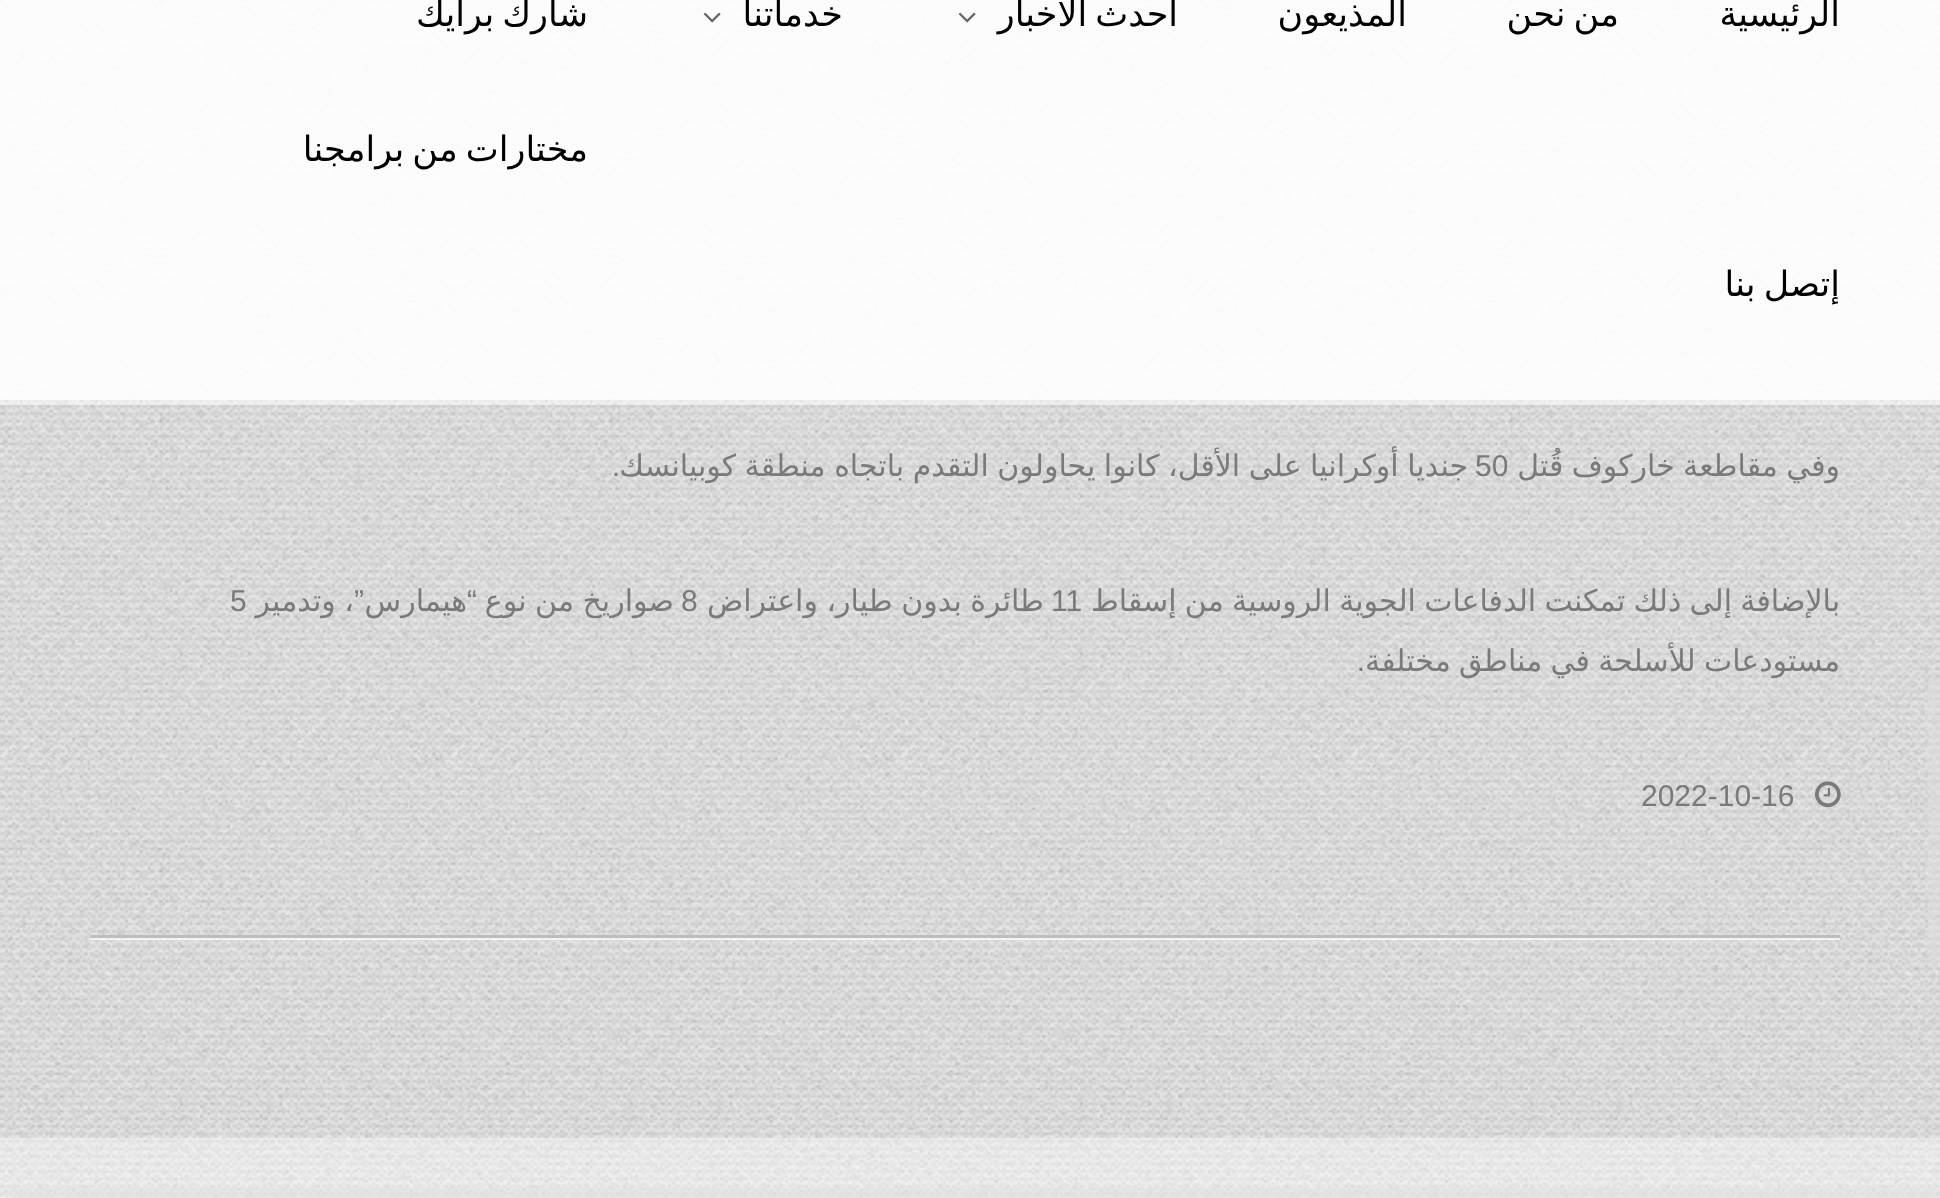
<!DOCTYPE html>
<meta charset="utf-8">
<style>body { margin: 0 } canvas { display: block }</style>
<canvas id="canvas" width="1940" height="1198"></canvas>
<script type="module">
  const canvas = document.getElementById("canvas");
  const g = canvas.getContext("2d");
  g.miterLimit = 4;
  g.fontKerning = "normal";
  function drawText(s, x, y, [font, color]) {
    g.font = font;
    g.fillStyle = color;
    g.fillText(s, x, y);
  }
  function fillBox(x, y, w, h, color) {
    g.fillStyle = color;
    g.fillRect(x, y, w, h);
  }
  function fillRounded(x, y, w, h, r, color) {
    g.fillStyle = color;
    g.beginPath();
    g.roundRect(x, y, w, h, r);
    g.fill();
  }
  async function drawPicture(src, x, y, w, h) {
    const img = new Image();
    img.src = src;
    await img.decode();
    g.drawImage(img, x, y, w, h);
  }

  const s1 = ["35px DejaVu Sans", "#000000"];
  const s2 = ["30px DejaVu Sans", "#7A7A7A"];
  const s3 = ["30px Liberation Sans", "#7A7A7A"];

  fillBox(0, 0, 1940, 1198, "#FFFFFF");
  await drawPicture("pic1.png", 0, 0, 1940, 1198);
  fillRounded(1928, 678, 12, 287, 5, "rgba(221, 221, 221, 0.51)");
  fillBox(0, 400, 1940, 5, "rgba(255, 255, 255, 0.5)");
  fillBox(0, 0, 1940, 400, "rgba(255, 255, 255, 0.9)");
  g.direction = "rtl";
  drawText("الرئيسية", 1840, 26, s1);
  g.wordSpacing = "-3px";
  drawText("من نحن", 1619, 26, s1);
  g.wordSpacing = "0px";
  drawText("المذيعون", 1407, 26, s1);
  g.wordSpacing = "-3px";
  drawText("أحدث الأخبار", 1178, 26, s1);
  await drawPicture("pic2.png", 958, 12, 18, 11);
  g.wordSpacing = "0px";
  drawText("خدماتنا", 843, 26, s1);
  await drawPicture("pic3.png", 703, 12, 18, 11);
  g.wordSpacing = "-3px";
  drawText("شارك برأيك", 588, 26, s1);
  drawText("مختارات من برامجنا", 588, 161, s1);
  drawText("إتصل بنا", 1840, 296, s1);
  fillBox(90, 938, 1750, 2, "rgba(255, 255, 255, 0.75)");
  fillBox(90, 935, 1750, 3, "#BDBDBD");
  g.wordSpacing = "-1.25px";
  drawText("وفي مقاطعة خاركوف قُتل", 1840, 476, s2);
  g.wordSpacing = "0px";
  g.direction = "ltr";
  drawText("50", 1475, 476, s3);
  g.wordSpacing = "-1px";
  g.direction = "rtl";
  drawText("جنديا أوكرانيا على الأقل، كانوا يحاولون التقدم باتجاه منطقة كوبيانسك", 1468, 476, s2);
  g.wordSpacing = "0px";
  drawText(".", 620, 476, s3);
  g.wordSpacing = "-1.25px";
  drawText("بالإضافة إلى ذلك تمكنت الدفاعات الجوية الروسية من إسقاط", 1840, 611, s2);
  g.wordSpacing = "0px";
  g.direction = "ltr";
  drawText("11", 1051, 611, s3);
  g.wordSpacing = "-1px";
  g.direction = "rtl";
  drawText("طائرة بدون طيار، واعتراض", 1044, 611, s2);
  g.wordSpacing = "0px";
  g.direction = "ltr";
  drawText("8", 681, 611, s3);
  g.wordSpacing = "-1px";
  g.direction = "rtl";
  drawText("صواريخ من نوع", 674, 611, s2);
  g.wordSpacing = "0px";
  drawText("“", 477, 611, s3);
  drawText("هيمارس", 467, 611, s2);
  drawText("”", 364, 611, s3);
  g.wordSpacing = "-1px";
  drawText("، وتدمير", 354, 611, s2);
  g.wordSpacing = "0px";
  g.direction = "ltr";
  drawText("5", 230, 611, s3);
  g.wordSpacing = "-1.25px";
  g.direction = "rtl";
  drawText("مستودعات للأسلحة في مناطق مختلفة", 1840, 671, s2);
  g.wordSpacing = "0px";
  drawText(".", 1365, 671, s3);
  await drawPicture("pic4.png", 1815, 781, 26, 27);
  g.direction = "ltr";
  drawText("2022-10-16", 1641, 806, s3);
  fillBox(0, 1138, 1940, 60, "rgba(255, 255, 255, 0.4)");
  fillRounded(10, 1188, 1930, 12, 5, "rgba(221, 221, 221, 0.51)");
</script>
